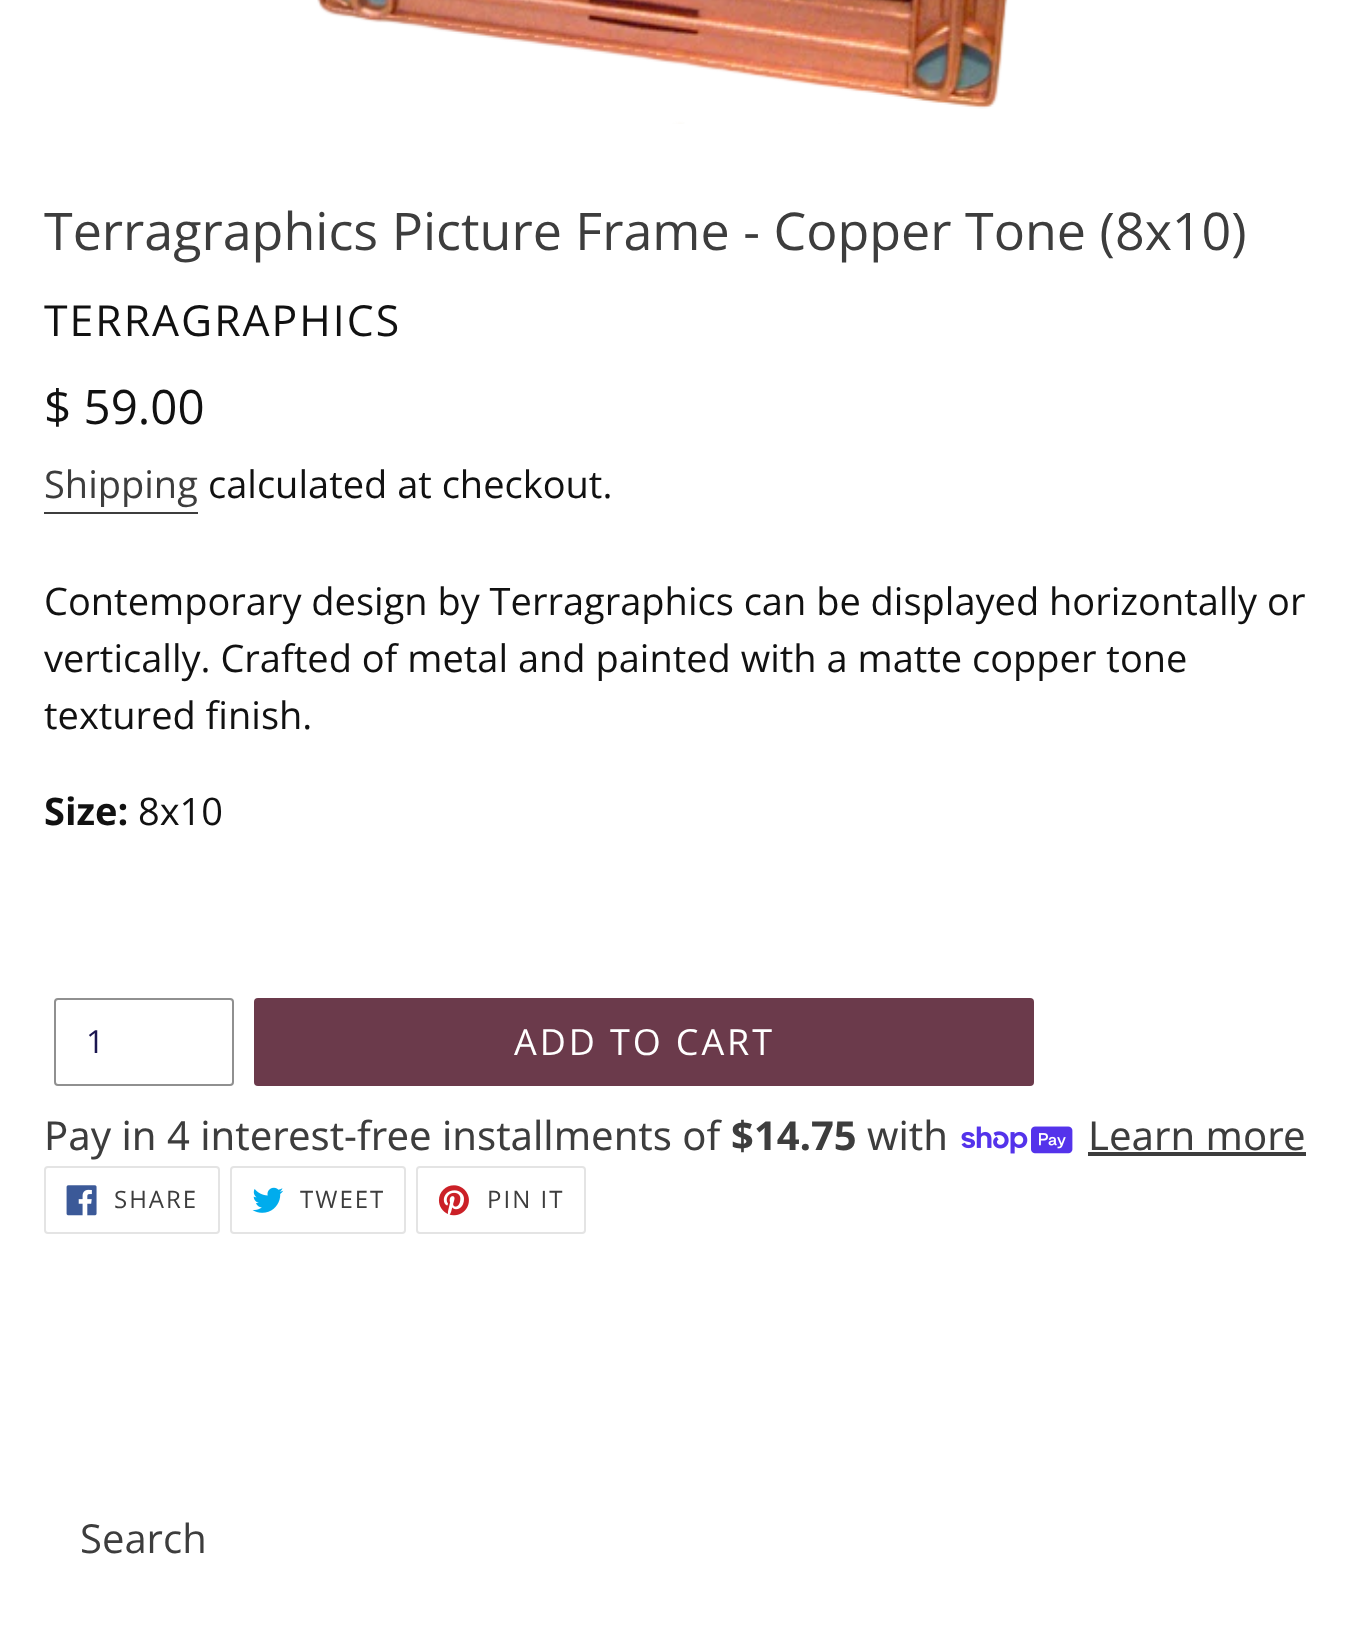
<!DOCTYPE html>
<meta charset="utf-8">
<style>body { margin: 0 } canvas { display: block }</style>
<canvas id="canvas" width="1366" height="1643"></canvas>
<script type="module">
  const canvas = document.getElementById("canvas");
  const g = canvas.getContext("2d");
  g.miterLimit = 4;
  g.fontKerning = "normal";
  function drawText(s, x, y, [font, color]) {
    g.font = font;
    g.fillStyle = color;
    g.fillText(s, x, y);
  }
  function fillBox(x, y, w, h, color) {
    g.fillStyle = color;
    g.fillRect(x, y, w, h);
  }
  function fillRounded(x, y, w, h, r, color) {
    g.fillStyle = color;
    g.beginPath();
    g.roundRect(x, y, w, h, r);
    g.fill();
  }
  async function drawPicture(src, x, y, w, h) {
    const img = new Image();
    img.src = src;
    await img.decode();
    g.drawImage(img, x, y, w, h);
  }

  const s1 = ["52px Open Sans", "#3D3D3D"];
  const s2 = ["42.75px Open Sans", "#111111"];
  const s3 = ["47.5px Open Sans", "#111111"];
  const s4 = ["38px Open Sans", "#3D3D3D"];
  const s5 = ["38px Open Sans", "#111111"];
  const s6 = ["bold 38px Open Sans", "#111111"];
  const s7 = ["32px Open Sans", "#1B1650"];
  const s8 = ["36px Open Sans", "#FFFFFF"];
  const s9 = ["40px Noto Sans", "#3D3D3D"];
  const s10 = ["bold 40px Noto Sans", "#3D3D3D"];
  const s11 = ["24px Open Sans", "#3D3D3D"];
  const s12 = ["40px Open Sans", "#3D3D3D"];

  fillBox(0, 0, 1366, 1643, "#FFFFFF");
  await drawPicture("pic1.png", 317, 0, 691, 124);
  drawText("Terragraphics Picture Frame - Copper Tone (8x10)", 44, 250, s1);
  g.letterSpacing = "2px";
  drawText("TERRAGRAPHICS", 44, 336, s2);
  g.letterSpacing = "0px";
  drawText("$ 59.00", 44, 424, s3);
  drawText("Shipping", 44, 498, s4);
  fillBox(44, 512, 154, 2, "#3D3D3D");
  drawText("calculated at checkout.", 208, 498, s5);
  drawText("Contemporary design by Terragraphics can be displayed horizontally or", 44, 615, s5);
  drawText("vertically. Crafted of metal and painted with a matte copper tone", 44, 672, s5);
  drawText("textured finish.", 44, 729, s5);
  drawText("Size:", 44, 825, s6);
  drawText("8x10", 138, 825, s5);
  g.beginPath();
  g.roundRect(55, 999, 178, 86, 3);
  g.strokeStyle = "#909090";
  g.lineWidth = 2;
  g.stroke();
  drawText("1", 86, 1053, s7);
  fillRounded(254, 998, 780, 88, 4, "#6B3A4B");
  g.letterSpacing = "2.9px";
  drawText("ADD TO CART", 514, 1055, s8);
  g.letterSpacing = "0px";
  drawText("Pay in 4 interest-free installments of", 44, 1150, s9);
  drawText("$14.75", 731, 1150, s10);
  drawText("with", 867, 1150, s9);
  await drawPicture("pic2.png", 961, 1126, 112, 28);
  drawText("Learn more", 1088, 1150, s9);
  fillBox(1088, 1152, 218, 4, "#3D3D3D");
  g.beginPath();
  g.roundRect(45, 1167, 174, 66, 3);
  g.strokeStyle = "#E4E4E4";
  g.stroke();
  await drawPicture("pic3.png", 66, 1185, 31, 31);
  g.letterSpacing = "2px";
  drawText("SHARE", 114, 1208, s11);
  g.beginPath();
  g.roundRect(231, 1167, 174, 66, 3);
  g.stroke();
  await drawPicture("pic4.png", 252, 1187, 32, 26);
  drawText("TWEET", 300, 1208, s11);
  g.beginPath();
  g.roundRect(417, 1167, 168, 66, 3);
  g.stroke();
  await drawPicture("pic5.png", 438, 1185, 31, 31);
  drawText("PIN IT", 487, 1208, s11);
  g.letterSpacing = "0px";
  drawText("Search", 80, 1553, s12);
</script>
